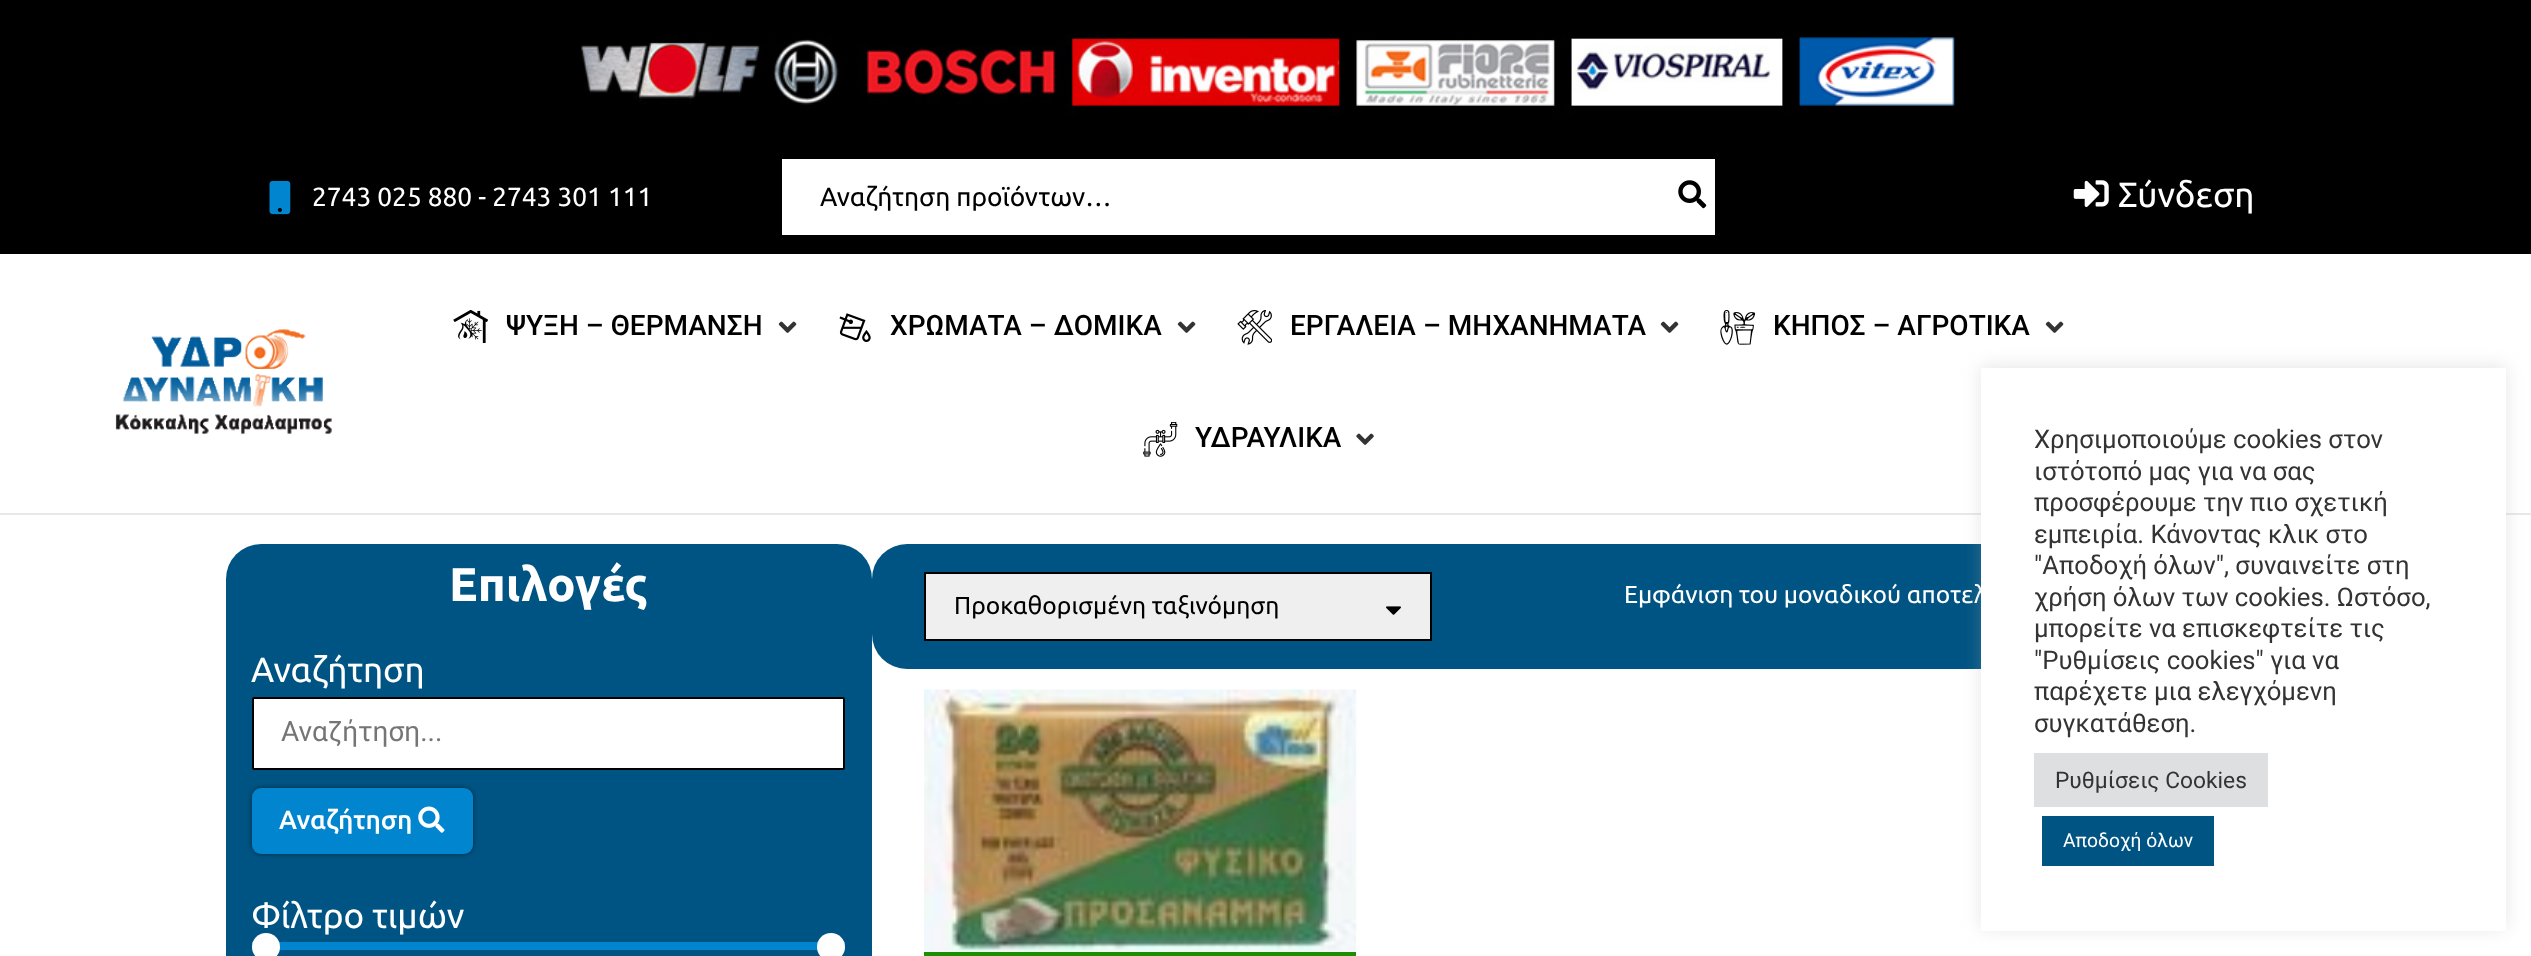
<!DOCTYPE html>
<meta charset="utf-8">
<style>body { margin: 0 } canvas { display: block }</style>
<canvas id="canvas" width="2531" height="956"></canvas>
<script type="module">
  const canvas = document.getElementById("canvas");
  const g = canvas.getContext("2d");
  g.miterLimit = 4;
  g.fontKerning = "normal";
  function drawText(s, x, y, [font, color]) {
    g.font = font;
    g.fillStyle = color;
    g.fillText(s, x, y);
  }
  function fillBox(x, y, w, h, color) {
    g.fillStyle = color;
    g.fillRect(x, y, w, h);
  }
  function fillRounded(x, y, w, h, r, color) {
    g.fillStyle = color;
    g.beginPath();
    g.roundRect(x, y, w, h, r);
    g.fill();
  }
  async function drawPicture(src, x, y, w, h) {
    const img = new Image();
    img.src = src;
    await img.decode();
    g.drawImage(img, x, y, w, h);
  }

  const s1 = ["26.25px Ubuntu", "#FFFFFF"];
  const s2 = ["26.25px Ubuntu", "#000000"];
  const s3 = ["35px Ubuntu", "#FFFFFF"];
  const s4 = ["500 28px Roboto", "#000000"];
  const s5 = ["bold 47.25px Ubuntu", "#FFFFFF"];
  const s6 = ["28px Roboto", "#757575"];
  const s7 = ["500 26.25px Ubuntu", "#FFFFFF"];
  const s8 = ["24.5px Ubuntu", "#000000"];
  const s9 = ["24.5px Ubuntu", "#FFFFFF"];
  const s10 = ["25.7px Roboto", "#333333"];
  const s11 = ["22.75px Roboto", "#333333"];
  const s12 = ["19.25px Roboto", "#FFFFFF"];

  fillBox(0, 0, 2531, 956, "#FFFFFF");
  fillBox(0, 0, 2531, 254, "#000000");
  await drawPicture("pic1.png", 581, 34, 1374, 82);
  await drawPicture("pic2.png", 269, 180, 22, 35);
  drawText("2743 025 880 - 2743 301 111", 312, 206, s1);
  fillBox(782, 159, 933, 76, "#FFFFFF");
  drawText("Αναζήτηση προϊόντων…", 820, 206, s2);
  await drawPicture("pic3.png", 1678, 180, 29, 29);
  await drawPicture("pic4.png", 2073, 180, 36, 27);
  drawText("Σύνδεση", 2118, 207, s3);
  fillBox(0, 513, 2531, 2, "#E7E8E9");
  await drawPicture("pic5.png", 115, 329, 218, 106);
  await drawPicture("pic6.png", 453, 310, 35, 33);
  drawText("ΨΥΞΗ – ΘΕΡΜΑΝΣΗ", 506, 335, s4);
  await drawPicture("pic7.png", 778, 321, 19, 12);
  await drawPicture("pic8.png", 839, 313, 32, 29);
  drawText("ΧΡΩΜΑΤΑ – ΔΟΜΙΚΑ", 890, 335, s4);
  await drawPicture("pic7.png", 1177, 321, 19, 12);
  await drawPicture("pic9.png", 1237, 310, 35, 35);
  drawText("ΕΡΓΑΛΕΙΑ – ΜΗΧΑΝΗΜΑΤΑ", 1290, 335, s4);
  await drawPicture("pic7.png", 1660, 321, 19, 12);
  await drawPicture("pic10.png", 1720, 310, 35, 35);
  drawText("ΚΗΠΟΣ – ΑΓΡΟΤΙΚΑ", 1773, 335, s4);
  await drawPicture("pic7.png", 2045, 321, 19, 12);
  await drawPicture("pic11.png", 1143, 422, 35, 35);
  drawText("ΥΔΡΑΥΛΙΚΑ", 1195, 447, s4);
  await drawPicture("pic12.png", 1356, 433, 18, 12);
  fillRounded(226, 544, 646, 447, 35, "#005483");
  drawText("Επιλογές", 449, 601, s5);
  drawText("Αναζήτηση", 251, 682, s3);
  g.beginPath();
  g.roundRect(253, 698, 591, 71, 1);
  g.fill();
  g.strokeStyle = "#000000";
  g.lineWidth = 2;
  g.stroke();
  drawText("Αναζήτηση...", 281, 741, s6);
  g.fillStyle = "rgba(0, 0, 0, 0.5)";
  g.filter = "blur(2.5px)";
  g.beginPath();
  g.roundRect(252, 788, 221, 66, 9);
  g.fill();
  g.filter = "none";
  fillRounded(252, 788, 221, 66, 9, "#0185CE");
  drawText("Αναζήτηση", 279, 829, s7);
  await drawPicture("pic13.png", 418, 806, 27, 27);
  drawText("Φίλτρο τιμών", 251, 928, s3);
  fillBox(252, 942, 593, 8, "#0185CE");
  g.fillStyle = "#FFFFFF";
  g.beginPath();
  g.arc(266, 947, 14, 0, Math.PI * 2);
  g.fill();
  g.beginPath();
  g.arc(831, 947, 14, 0, Math.PI * 2);
  g.fill();
  fillRounded(872, 544, 1435, 125, 35, "#005483");
  g.fillStyle = "#EFEFEF";
  g.beginPath();
  g.rect(925, 573, 506, 67);
  g.fill();
  g.stroke();
  drawText("Προκαθορισμένη ταξινόμηση", 954, 614, s8);
  await drawPicture("pic14.png", 1386, 606, 15, 9);
  drawText("Εμφάνιση του μοναδικού αποτελ", 1624, 603, s9);
  await drawPicture("pic15.png", 924, 689, 433, 263);
  fillBox(924, 952, 432, 4, "#1C8E00");
  g.fillStyle = "rgba(172, 171, 171, 0.3)";
  g.filter = "blur(9px)";
  g.beginPath();
  g.rect(1981, 366, 525, 563);
  g.fill();
  g.filter = "none";
  fillBox(1981, 368, 525, 563, "#FFFFFF");
  drawText("Χρησιμοποιούμε cookies στον", 2034, 448, s10);
  drawText("ιστότοπό μας για να σας", 2034, 480, s10);
  drawText("προσφέρουμε την πιο σχετική", 2034, 511, s10);
  drawText("εμπειρία. Κάνοντας κλικ στο", 2034, 543, s10);
  drawText("\"Αποδοχή όλων\", συναινείτε στη", 2034, 574, s10);
  drawText("χρήση όλων των cookies. Ωστόσο,", 2034, 606, s10);
  drawText("μπορείτε να επισκεφτείτε τις", 2034, 637, s10);
  drawText("\"Ρυθμίσεις cookies\" για να", 2034, 669, s10);
  drawText("παρέχετε μια ελεγχόμενη", 2034, 700, s10);
  drawText("συγκατάθεση.", 2034, 732, s10);
  fillBox(2034, 753, 234, 54, "#DEDFE0");
  drawText("Ρυθμίσεις Cookies", 2055, 788, s11);
  fillBox(2042, 816, 172, 50, "#005483");
  drawText("Αποδοχή όλων", 2063, 847, s12);
</script>
